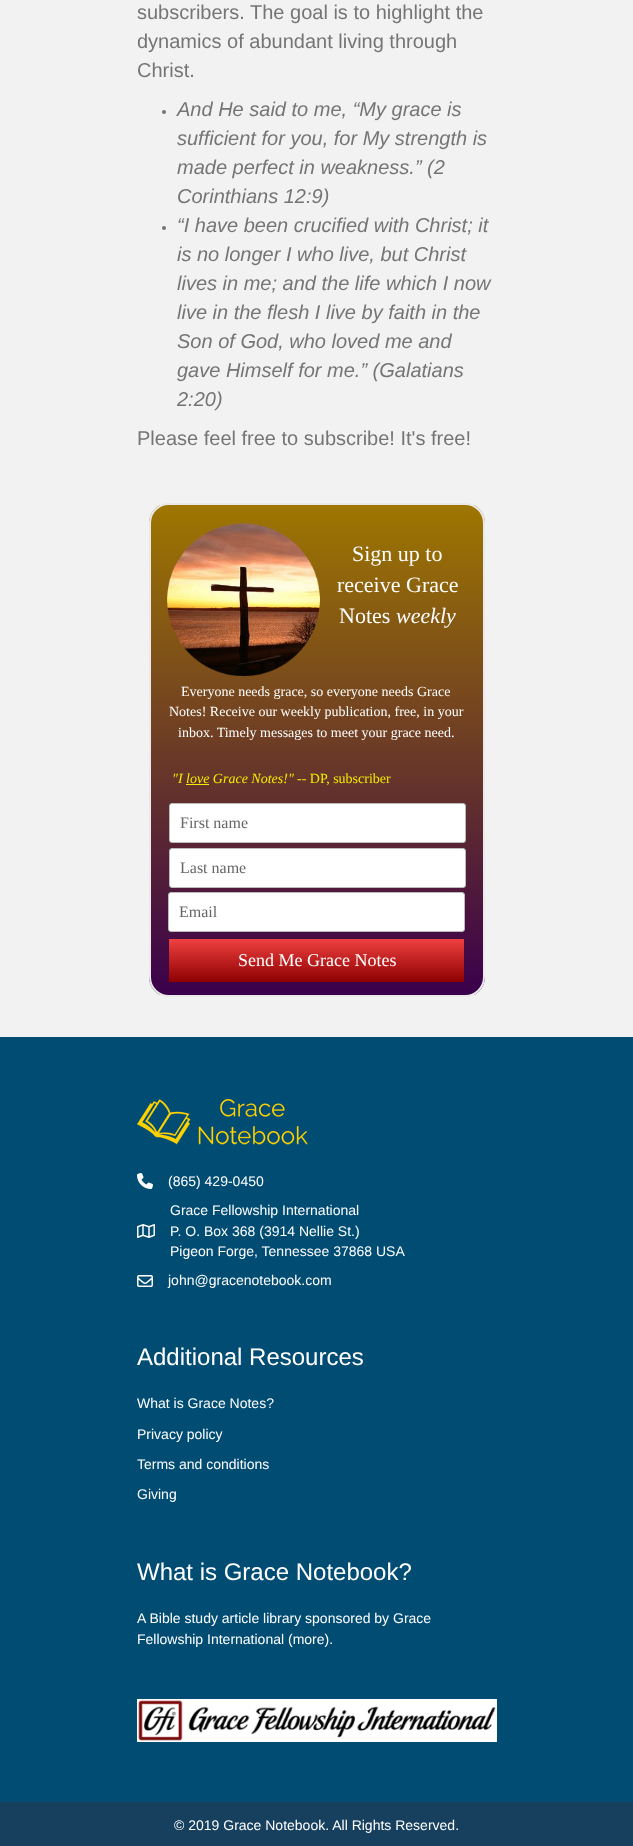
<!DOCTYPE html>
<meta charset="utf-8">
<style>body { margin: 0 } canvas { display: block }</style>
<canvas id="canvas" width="633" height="1846"></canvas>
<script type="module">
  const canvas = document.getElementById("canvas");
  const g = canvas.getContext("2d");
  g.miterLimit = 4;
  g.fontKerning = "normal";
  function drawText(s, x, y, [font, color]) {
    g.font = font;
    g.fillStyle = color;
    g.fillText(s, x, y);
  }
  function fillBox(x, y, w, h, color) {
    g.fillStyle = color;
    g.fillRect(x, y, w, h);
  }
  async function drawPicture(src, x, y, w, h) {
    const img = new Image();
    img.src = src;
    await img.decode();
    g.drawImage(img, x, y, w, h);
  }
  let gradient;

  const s1 = ["20px Liberation Sans", "#757575"];
  const s2 = ["italic 20px Liberation Sans", "#757575"];
  const s3 = ["22px Liberation Serif", "#FFFFFF"];
  const s4 = ["italic 22px Liberation Serif", "#FFFFFF"];
  const s5 = ["14px Liberation Serif", "#FFFFFF"];
  const s6 = ["italic 14px Liberation Serif", "#EDED00"];
  const s7 = ["14px Liberation Serif", "#EDED00"];
  const s8 = ["16px Liberation Serif", "#666666"];
  const s9 = ["18px Liberation Serif", "#FFFFFF"];
  const s10 = ["14px Liberation Sans", "#FFFFFF"];
  const s11 = ["24px Liberation Sans", "#FFFFFF"];

  fillBox(0, 0, 633, 1846, "#F2F2F2");
  drawText("subscribers. The goal is to highlight the", 137, 19, s1);
  drawText("dynamics of abundant living through", 137, 48, s1);
  drawText("Christ.", 137, 77, s1);
  g.beginPath();
  g.arc(164, 112, 2, 0, Math.PI * 2);
  g.fill();
  drawText("And He said to me, “My grace is", 177, 116, s2);
  drawText("sufficient for you, for My strength is", 177, 145, s2);
  drawText("made perfect in weakness.” (2", 177, 174, s2);
  drawText("Corinthians 12:9)", 177, 203, s2);
  g.beginPath();
  g.arc(164, 228, 2, 0, Math.PI * 2);
  g.fill();
  drawText("“I have been crucified with Christ; it", 177, 232, s2);
  drawText("is no longer I who live, but Christ", 177, 261, s2);
  drawText("lives in me; and the life which I now", 177, 290, s2);
  drawText("live in the flesh I live by faith in the", 177, 319, s2);
  drawText("Son of God, who loved me and", 177, 348, s2);
  drawText("gave Himself for me.” (Galatians", 177, 377, s2);
  drawText("2:20)", 177, 406, s2);
  drawText("Please feel free to subscribe! It's free!", 137, 445, s1);
  g.save();
  g.beginPath();
  g.roundRect(149, 503, 336, 494, 20);
  g.clip();
  gradient = g.createLinearGradient(317, 505, 317, 995);
  gradient.addColorStop(0, "#9E7600");
  gradient.addColorStop(1, "#3A004C");
  g.fillStyle = gradient;
  g.fillRect(149, 505, 336, 490);
  g.restore();
  g.beginPath();
  g.roundRect(150, 504, 334, 492, 19);
  g.strokeStyle = "#EAEAEA";
  g.lineWidth = 2;
  g.stroke();
  await drawPicture("pic1.png", 167, 523, 153, 153);
  drawText("Sign up to", 352, 561, s3);
  drawText("receive Grace", 337, 592, s3);
  drawText("Notes", 339, 623, s3);
  drawText("weekly", 396, 623, s4);
  drawText("Everyone needs grace, so everyone needs Grace", 181, 696, s5);
  drawText("Notes! Receive our weekly publication, free, in your", 169, 716, s5);
  drawText("inbox. Timely messages to meet your grace need.", 178, 737, s5);
  drawText("\"I love Grace Notes!\"", 172, 783, s6);
  fillBox(186, 784, 23, 1, "#EDED00");
  drawText("-- DP, subscriber", 297, 783, s7);
  g.fillStyle = "#FFFFFF";
  g.beginPath();
  g.roundRect(169.5, 803.5, 296, 39, 2.5);
  g.fill();
  g.strokeStyle = "#BBBBBB";
  g.lineWidth = 1;
  g.stroke();
  drawText("First name", 180, 828, s8);
  g.fillStyle = "#FFFFFF";
  g.beginPath();
  g.roundRect(169.5, 848.5, 296, 39, 2.5);
  g.fill();
  g.stroke();
  drawText("Last name", 180, 873, s8);
  g.fillStyle = "#FFFFFF";
  g.beginPath();
  g.roundRect(168.5, 892.5, 296, 39, 2.5);
  g.fill();
  g.stroke();
  drawText("Email", 179, 917, s8);
  gradient = g.createLinearGradient(317, 939, 317, 982);
  gradient.addColorStop(0, "#EF4040");
  gradient.addColorStop(1, "#8E0000");
  g.fillStyle = gradient;
  g.fillRect(169, 939, 295, 43);
  drawText("Send Me Grace Notes", 238, 966, s9);
  fillBox(0, 1037, 633, 765, "#004C72");
  await drawPicture("pic2.png", 137, 1099, 171, 46);
  await drawPicture("pic3.png", 137, 1173, 16, 16);
  drawText("(865) 429-0450", 168, 1186, s10);
  await drawPicture("pic4.png", 137, 1224, 18, 14);
  drawText("Grace Fellowship International", 170, 1215, s10);
  drawText("P. O. Box 368 (3914 Nellie St.)", 170, 1236, s10);
  drawText("Pigeon Forge, Tennessee 37868 USA", 170, 1256, s10);
  await drawPicture("pic5.png", 137, 1275, 16, 12);
  drawText("john@gracenotebook.com", 168, 1285, s10);
  drawText("Additional Resources", 137, 1365, s11);
  drawText("What is Grace Notes?", 137, 1408, s10);
  drawText("Privacy policy", 137, 1439, s10);
  drawText("Terms and conditions", 137, 1469, s10);
  drawText("Giving", 137, 1499, s10);
  drawText("What is Grace Notebook?", 137, 1580, s11);
  drawText("A Bible study article library sponsored by Grace", 137, 1623, s10);
  drawText("Fellowship International (more).", 137, 1644, s10);
  await drawPicture("pic6.png", 137, 1699, 360, 43);
  fillBox(0, 1802, 633, 44, "#16405E");
  drawText("© 2019 Grace Notebook. All Rights Reserved.", 174, 1830, s10);
</script>
